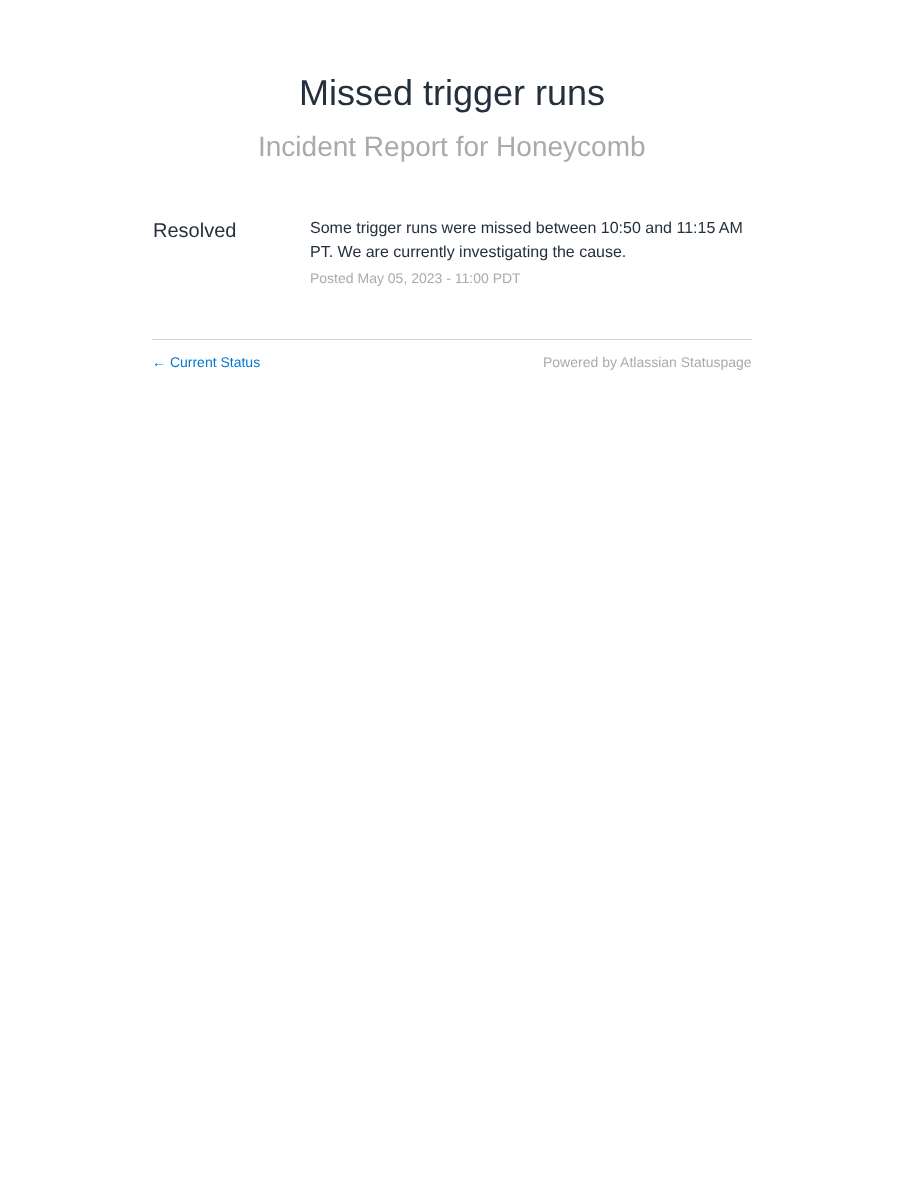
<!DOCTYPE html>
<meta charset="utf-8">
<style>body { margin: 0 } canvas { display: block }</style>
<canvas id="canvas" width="904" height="1203"></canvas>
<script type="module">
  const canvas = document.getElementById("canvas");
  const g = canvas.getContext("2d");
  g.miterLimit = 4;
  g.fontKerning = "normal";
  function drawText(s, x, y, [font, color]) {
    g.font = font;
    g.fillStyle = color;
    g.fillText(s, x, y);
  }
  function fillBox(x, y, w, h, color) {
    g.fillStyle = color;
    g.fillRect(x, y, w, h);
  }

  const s1 = ["36px Liberation Sans", "#25303E"];
  const s2 = ["28px Liberation Sans", "#AAAAAA"];
  const s3 = ["20px Liberation Sans", "#25303E"];
  const s4 = ["16px Liberation Sans", "#25303E"];
  const s5 = ["14px Liberation Sans", "#AAAAAA"];
  const s6 = ["14px Liberation Sans", "#0278CD"];

  fillBox(0, 0, 904, 1203, "#FFFFFF");
  drawText("Missed trigger runs", 299, 105, s1);
  drawText("Incident Report for Honeycomb", 258, 156, s2);
  drawText("Resolved", 153, 237, s3);
  drawText("Some trigger runs were missed between 10:50 and 11:15 AM", 310, 233, s4);
  drawText("PT. We are currently investigating the cause.", 310, 257, s4);
  drawText("Posted May 05, 2023 - 11:00 PDT", 310, 283, s5);
  fillBox(152, 339, 600, 1, "#D0D3D4");
  drawText("← Current Status", 152, 367, s6);
  drawText("Powered by Atlassian Statuspage", 543, 367, s5);
</script>
